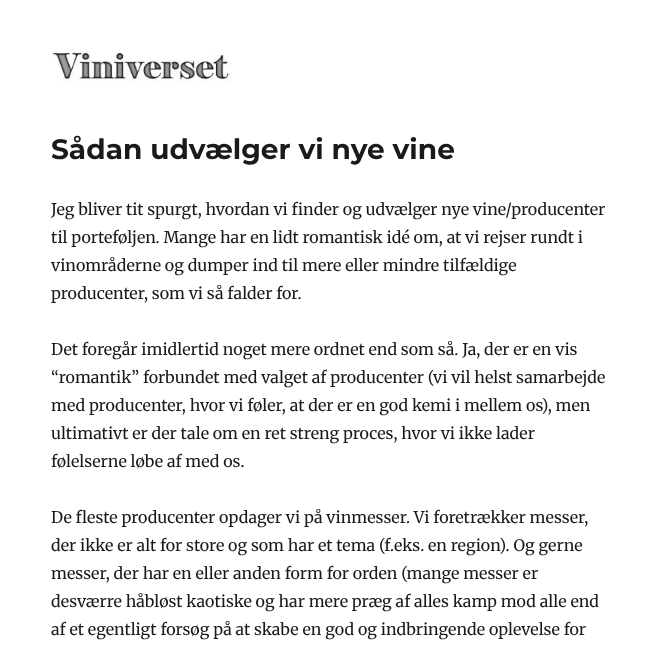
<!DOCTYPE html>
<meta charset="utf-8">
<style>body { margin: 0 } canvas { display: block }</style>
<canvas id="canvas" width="661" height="647"></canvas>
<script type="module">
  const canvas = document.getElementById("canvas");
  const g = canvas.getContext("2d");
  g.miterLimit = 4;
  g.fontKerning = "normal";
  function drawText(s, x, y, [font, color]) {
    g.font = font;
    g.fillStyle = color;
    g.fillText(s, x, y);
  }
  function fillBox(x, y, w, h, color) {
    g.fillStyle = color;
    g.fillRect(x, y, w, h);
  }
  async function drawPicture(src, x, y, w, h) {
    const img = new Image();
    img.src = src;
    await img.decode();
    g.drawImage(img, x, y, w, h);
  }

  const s1 = ["bold 28px Montserrat", "#1A1A1A"];
  const s2 = ["16px Merriweather", "#1A1A1A"];

  fillBox(0, 0, 661, 647, "#FFFFFF");
  await drawPicture("pic1.png", 51, 48, 180, 36);
  drawText("Sådan udvælger vi nye vine", 51, 159, s1);
  drawText("Jeg bliver tit spurgt, hvordan vi finder og udvælger nye vine/producenter", 51, 215, s2);
  drawText("til porteføljen. Mange har en lidt romantisk idé om, at vi rejser rundt i", 51, 243, s2);
  drawText("vinområderne og dumper ind til mere eller mindre tilfældige", 51, 271, s2);
  drawText("producenter, som vi så falder for.", 51, 299, s2);
  drawText("Det foregår imidlertid noget mere ordnet end som så. Ja, der er en vis", 51, 355, s2);
  drawText("“romantik” forbundet med valget af producenter (vi vil helst samarbejde", 51, 383, s2);
  drawText("med producenter, hvor vi føler, at der er en god kemi i mellem os), men", 51, 411, s2);
  drawText("ultimativt er der tale om en ret streng proces, hvor vi ikke lader", 51, 439, s2);
  drawText("følelserne løbe af med os.", 51, 467, s2);
  drawText("De fleste producenter opdager vi på vinmesser. Vi foretrækker messer,", 51, 523, s2);
  drawText("der ikke er alt for store og som har et tema (f.eks. en region). Og gerne", 51, 551, s2);
  drawText("messer, der har en eller anden form for orden (mange messer er", 51, 579, s2);
  drawText("desværre håbløst kaotiske og har mere præg af alles kamp mod alle end", 51, 607, s2);
  drawText("af et egentligt forsøg på at skabe en god og indbringende oplevelse for", 51, 635, s2);
</script>
